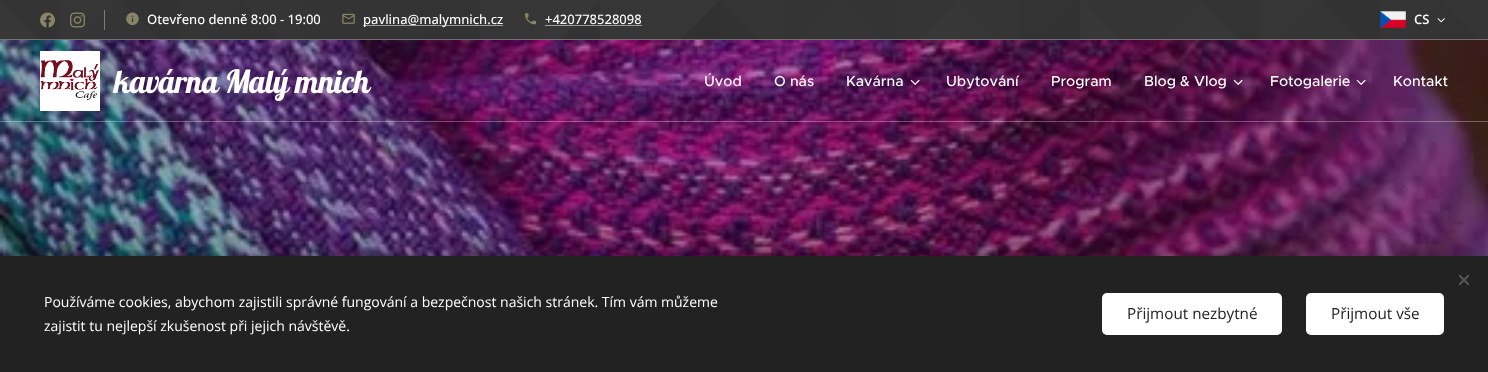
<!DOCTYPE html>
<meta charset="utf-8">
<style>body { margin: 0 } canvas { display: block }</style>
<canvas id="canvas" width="1488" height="372"></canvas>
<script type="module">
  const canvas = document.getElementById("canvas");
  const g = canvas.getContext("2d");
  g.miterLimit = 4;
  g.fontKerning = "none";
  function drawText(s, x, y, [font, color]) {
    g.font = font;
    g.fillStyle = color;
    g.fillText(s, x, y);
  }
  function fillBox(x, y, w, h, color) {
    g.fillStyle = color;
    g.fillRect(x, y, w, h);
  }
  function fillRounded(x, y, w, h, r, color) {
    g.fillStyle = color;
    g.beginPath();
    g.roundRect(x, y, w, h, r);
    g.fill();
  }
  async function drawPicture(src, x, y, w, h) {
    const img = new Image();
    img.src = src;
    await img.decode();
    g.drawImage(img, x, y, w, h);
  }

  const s1 = ["500 13px Open Sans", "#FFFFFF"];
  const s2 = ["600 13px Open Sans", "#FFFFFF"];
  const s3 = ["32px Lobster", "#FFFFFF"];
  const s4 = ["500 14.5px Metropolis", "#FFFFFF"];
  const s5 = ["14px Open Sans", "#FFFFFF"];
  const s6 = ["15.25px Open Sans", "#222222"];

  fillBox(0, 0, 1488, 372, "#FFFFFF");
  await drawPicture("pic1.png", 0, 0, 1488, 40);
  await drawPicture("pic2.png", 40, 12, 15, 16);
  await drawPicture("pic3.png", 70, 12, 15, 16);
  fillBox(104, 10, 1, 20, "#7C7C7C");
  await drawPicture("pic4.png", 126, 12, 13, 13);
  drawText("Otevřeno denně 8:00 - 19:00", 147, 24, s1);
  await drawPicture("pic5.png", 342, 13, 13, 11);
  fillBox(363, 25, 140, 1, "rgba(255, 255, 255, 0.5)");
  drawText("pavlina@malymnich.cz", 363, 24, s1);
  await drawPicture("pic6.png", 524, 13, 13, 12);
  drawText("+420778528098", 545, 24, s1);
  fillBox(545, 25, 97, 1, "rgba(255, 255, 255, 0.5)");
  await drawPicture("pic7.png", 1380, 11, 26, 17);
  drawText("CS", 1414, 24, s2);
  await drawPicture("pic8.png", 1437, 18, 8, 5);
  fillBox(0, 39, 1488, 1, "rgba(255, 255, 255, 0.3)");
  await drawPicture("pic13.png", 0, 40, 1488, 216);
  await drawPicture("pic9.png", 40, 51, 60, 60);
  g.letterSpacing = "-0.6px";
  drawText("kavárna Malý mnich", 114, 93, s3);
  g.letterSpacing = "0px";
  drawText("Úvod", 704, 86, s4);
  drawText("O nás", 774, 86, s4);
  drawText("Kavárna", 846, 86, s4);
  await drawPicture("pic10.png", 910, 79, 10, 6);
  drawText("Ubytování", 946, 86, s4);
  drawText("Program", 1051, 86, s4);
  drawText("Blog & Vlog", 1144, 86, s4);
  await drawPicture("pic11.png", 1233, 79, 10, 6);
  drawText("Fotogalerie", 1270, 86, s4);
  await drawPicture("pic12.png", 1356, 79, 10, 6);
  drawText("Kontakt", 1393, 86, s4);
  fillBox(0, 121, 1488, 1, "rgba(255, 255, 255, 0.3)");
  g.fillStyle = "rgba(0, 0, 0, 0.33)";
  g.filter = "blur(12.5px)";
  g.beginPath();
  g.rect(0, 256, 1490, 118);
  g.fill();
  g.filter = "none";
  fillBox(0, 256, 1488, 116, "#222222");
  g.fillStyle = "#555555";
  g.beginPath();
  g.moveTo(1458.5, 284);
  g.lineTo(1468, 274.5);
  g.lineTo(1469.5, 276);
  g.lineTo(1460, 285.5);
  g.closePath();
  g.fill();
  g.beginPath();
  g.moveTo(1460, 274.5);
  g.lineTo(1469.5, 284);
  g.lineTo(1468, 285.5);
  g.lineTo(1458.5, 276);
  g.closePath();
  g.fill();
  drawText("Používáme cookies, abychom zajistili správné fungování a bezpečnost našich stránek. Tím vám můžeme", 44, 307, s5);
  drawText("zajistit tu nejlepší zkušenost při jejich návštěvě.", 44, 331, s5);
  fillRounded(1102, 293, 180, 42, 5, "#FFFFFF");
  drawText("Přijmout nezbytné", 1127, 319, s6);
  fillRounded(1306, 293, 138, 42, 5, "#FFFFFF");
  drawText("Přijmout vše", 1331, 319, s6);
</script>
